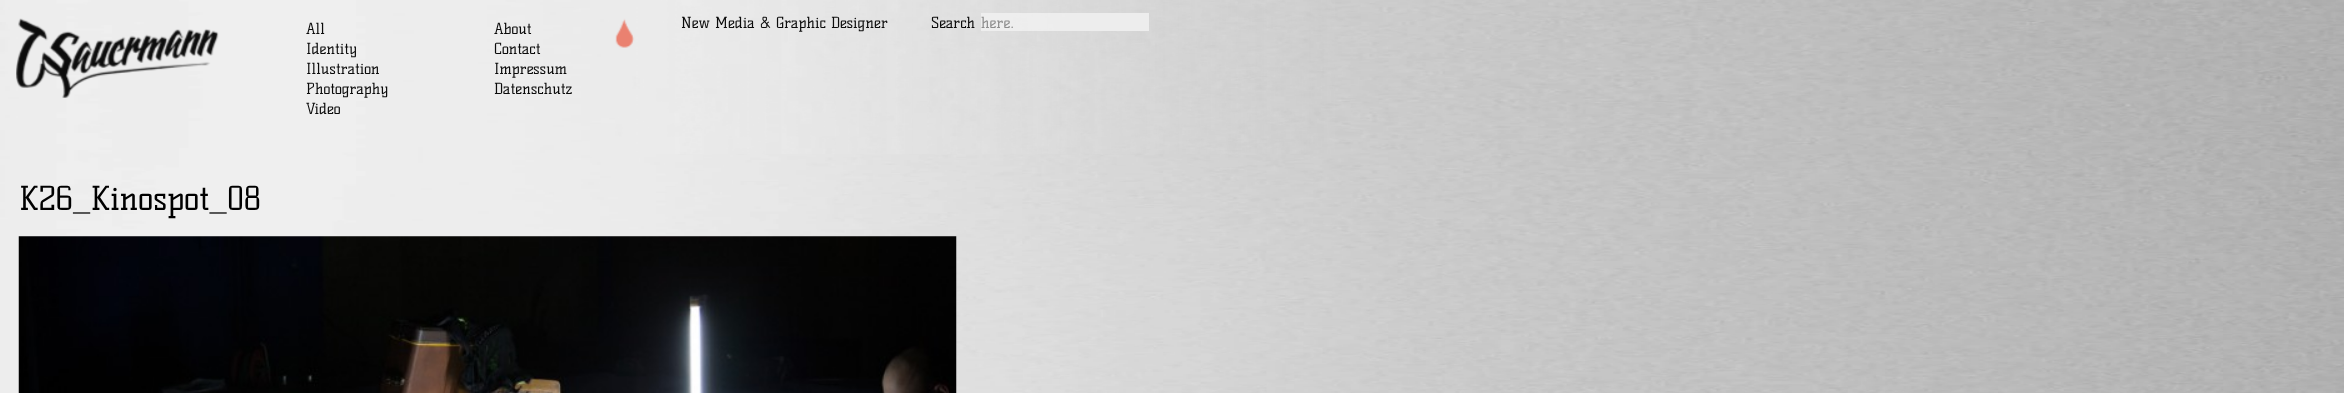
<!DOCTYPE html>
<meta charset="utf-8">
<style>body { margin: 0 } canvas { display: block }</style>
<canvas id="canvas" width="2344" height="393"></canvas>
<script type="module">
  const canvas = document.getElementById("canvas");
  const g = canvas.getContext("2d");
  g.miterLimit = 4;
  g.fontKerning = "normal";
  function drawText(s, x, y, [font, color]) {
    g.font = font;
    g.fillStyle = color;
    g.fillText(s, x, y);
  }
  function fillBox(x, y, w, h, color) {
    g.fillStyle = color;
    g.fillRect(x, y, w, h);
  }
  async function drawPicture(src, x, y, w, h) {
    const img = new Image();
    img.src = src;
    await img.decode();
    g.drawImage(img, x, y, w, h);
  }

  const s1 = ["15px Kelly Slab", "#0C0C0C"];
  const s2 = ["15px Kelly Slab", "#8D8D8D"];
  const s3 = ["32.5px Kelly Slab", "#000000"];

  fillBox(0, 0, 2344, 393, "#FFFFFF");
  await drawPicture("pic1.png", 0, 0, 2344, 393);
  await drawPicture("pic2.png", 615, 0, 720, 154);
  drawText("All", 306, 34, s1);
  drawText("Identity", 306, 54, s1);
  drawText("Illustration", 306, 74, s1);
  drawText("Photography", 306, 94, s1);
  drawText("Video", 306, 114, s1);
  drawText("About", 494, 34, s1);
  drawText("Contact", 494, 54, s1);
  drawText("Impressum", 494, 74, s1);
  drawText("Datenschutz", 494, 94, s1);
  await drawPicture("pic3.png", 16, 18, 203, 80);
  drawText("New Media & Graphic Designer", 681, 28, s1);
  drawText("Search", 931, 28, s1);
  fillBox(981, 13, 168, 18, "rgba(238, 238, 238, 0.95)");
  drawText("here.", 981, 28, s2);
  drawText("K26_Kinospot_08", 19, 210, s3);
  await drawPicture("pic4.png", 18, 236, 939, 157);
</script>
